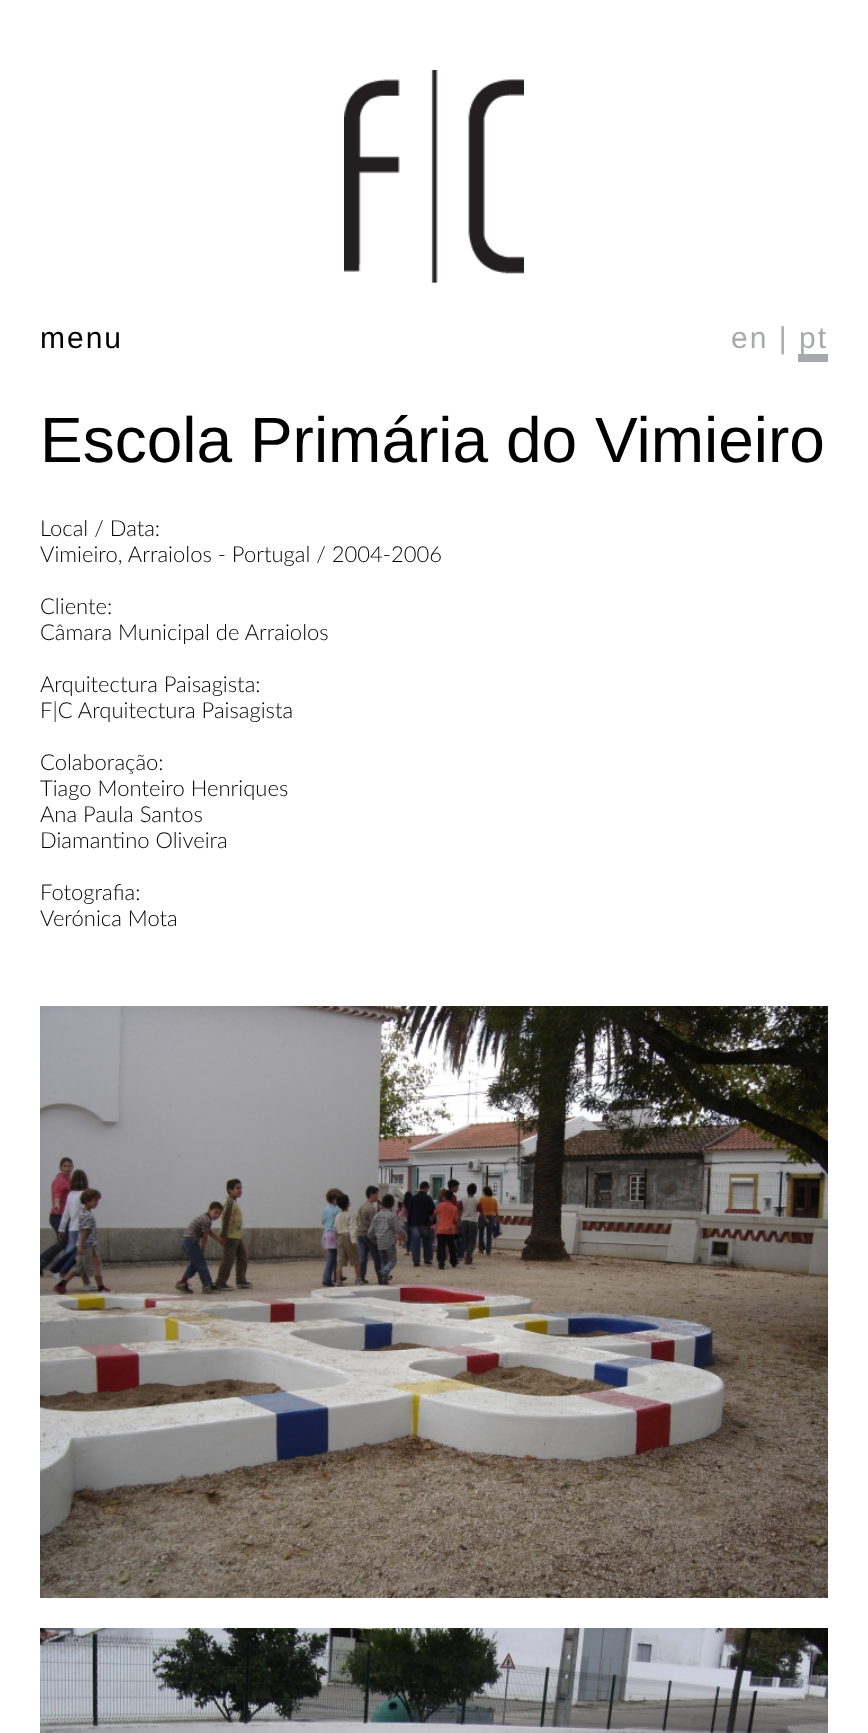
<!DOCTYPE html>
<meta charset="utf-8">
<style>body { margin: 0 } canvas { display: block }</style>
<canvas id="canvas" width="868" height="1733"></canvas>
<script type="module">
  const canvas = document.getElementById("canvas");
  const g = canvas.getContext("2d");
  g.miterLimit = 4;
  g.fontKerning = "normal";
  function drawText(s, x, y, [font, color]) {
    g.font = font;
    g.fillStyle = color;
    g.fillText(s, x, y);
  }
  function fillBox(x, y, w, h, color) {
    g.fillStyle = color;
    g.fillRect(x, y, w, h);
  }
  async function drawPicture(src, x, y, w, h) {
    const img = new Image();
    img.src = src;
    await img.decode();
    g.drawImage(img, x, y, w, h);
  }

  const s1 = ["30px Liberation Sans", "#000000"];
  const s2 = ["30px Liberation Sans", "#A7A9AC"];
  const s3 = ["64px Liberation Sans", "#000000"];
  const s4 = ["300 22px Lato", "#000000"];

  fillBox(0, 0, 868, 1733, "#FFFFFF");
  await drawPicture("pic1.png", 344, 70, 180, 213);
  g.letterSpacing = "2px";
  drawText("menu", 40, 348, s1);
  drawText("en |", 731, 348, s2);
  fillBox(798, 354, 30, 8, "#A7A9AC");
  drawText("pt", 799, 348, s2);
  g.letterSpacing = "0px";
  drawText("Escola Primária do Vimieiro", 40, 462, s3);
  drawText("Local / Data:", 40, 536, s4);
  drawText("Vimieiro, Arraiolos - Portugal / 2004-2006", 40, 562, s4);
  drawText("Cliente:", 40, 614, s4);
  drawText("Câmara Municipal de Arraiolos", 40, 640, s4);
  drawText("Arquitectura Paisagista:", 40, 692, s4);
  drawText("F|C Arquitectura Paisagista", 40, 718, s4);
  drawText("Colaboração:", 40, 770, s4);
  drawText("Tiago Monteiro Henriques", 40, 796, s4);
  drawText("Ana Paula Santos", 40, 822, s4);
  drawText("Diamantino Oliveira", 40, 848, s4);
  drawText("Fotografia:", 40, 900, s4);
  drawText("Verónica Mota", 40, 926, s4);
  await drawPicture("pic2.png", 40, 1006, 788, 592);
  await drawPicture("pic3.png", 40, 1628, 788, 105);
</script>
